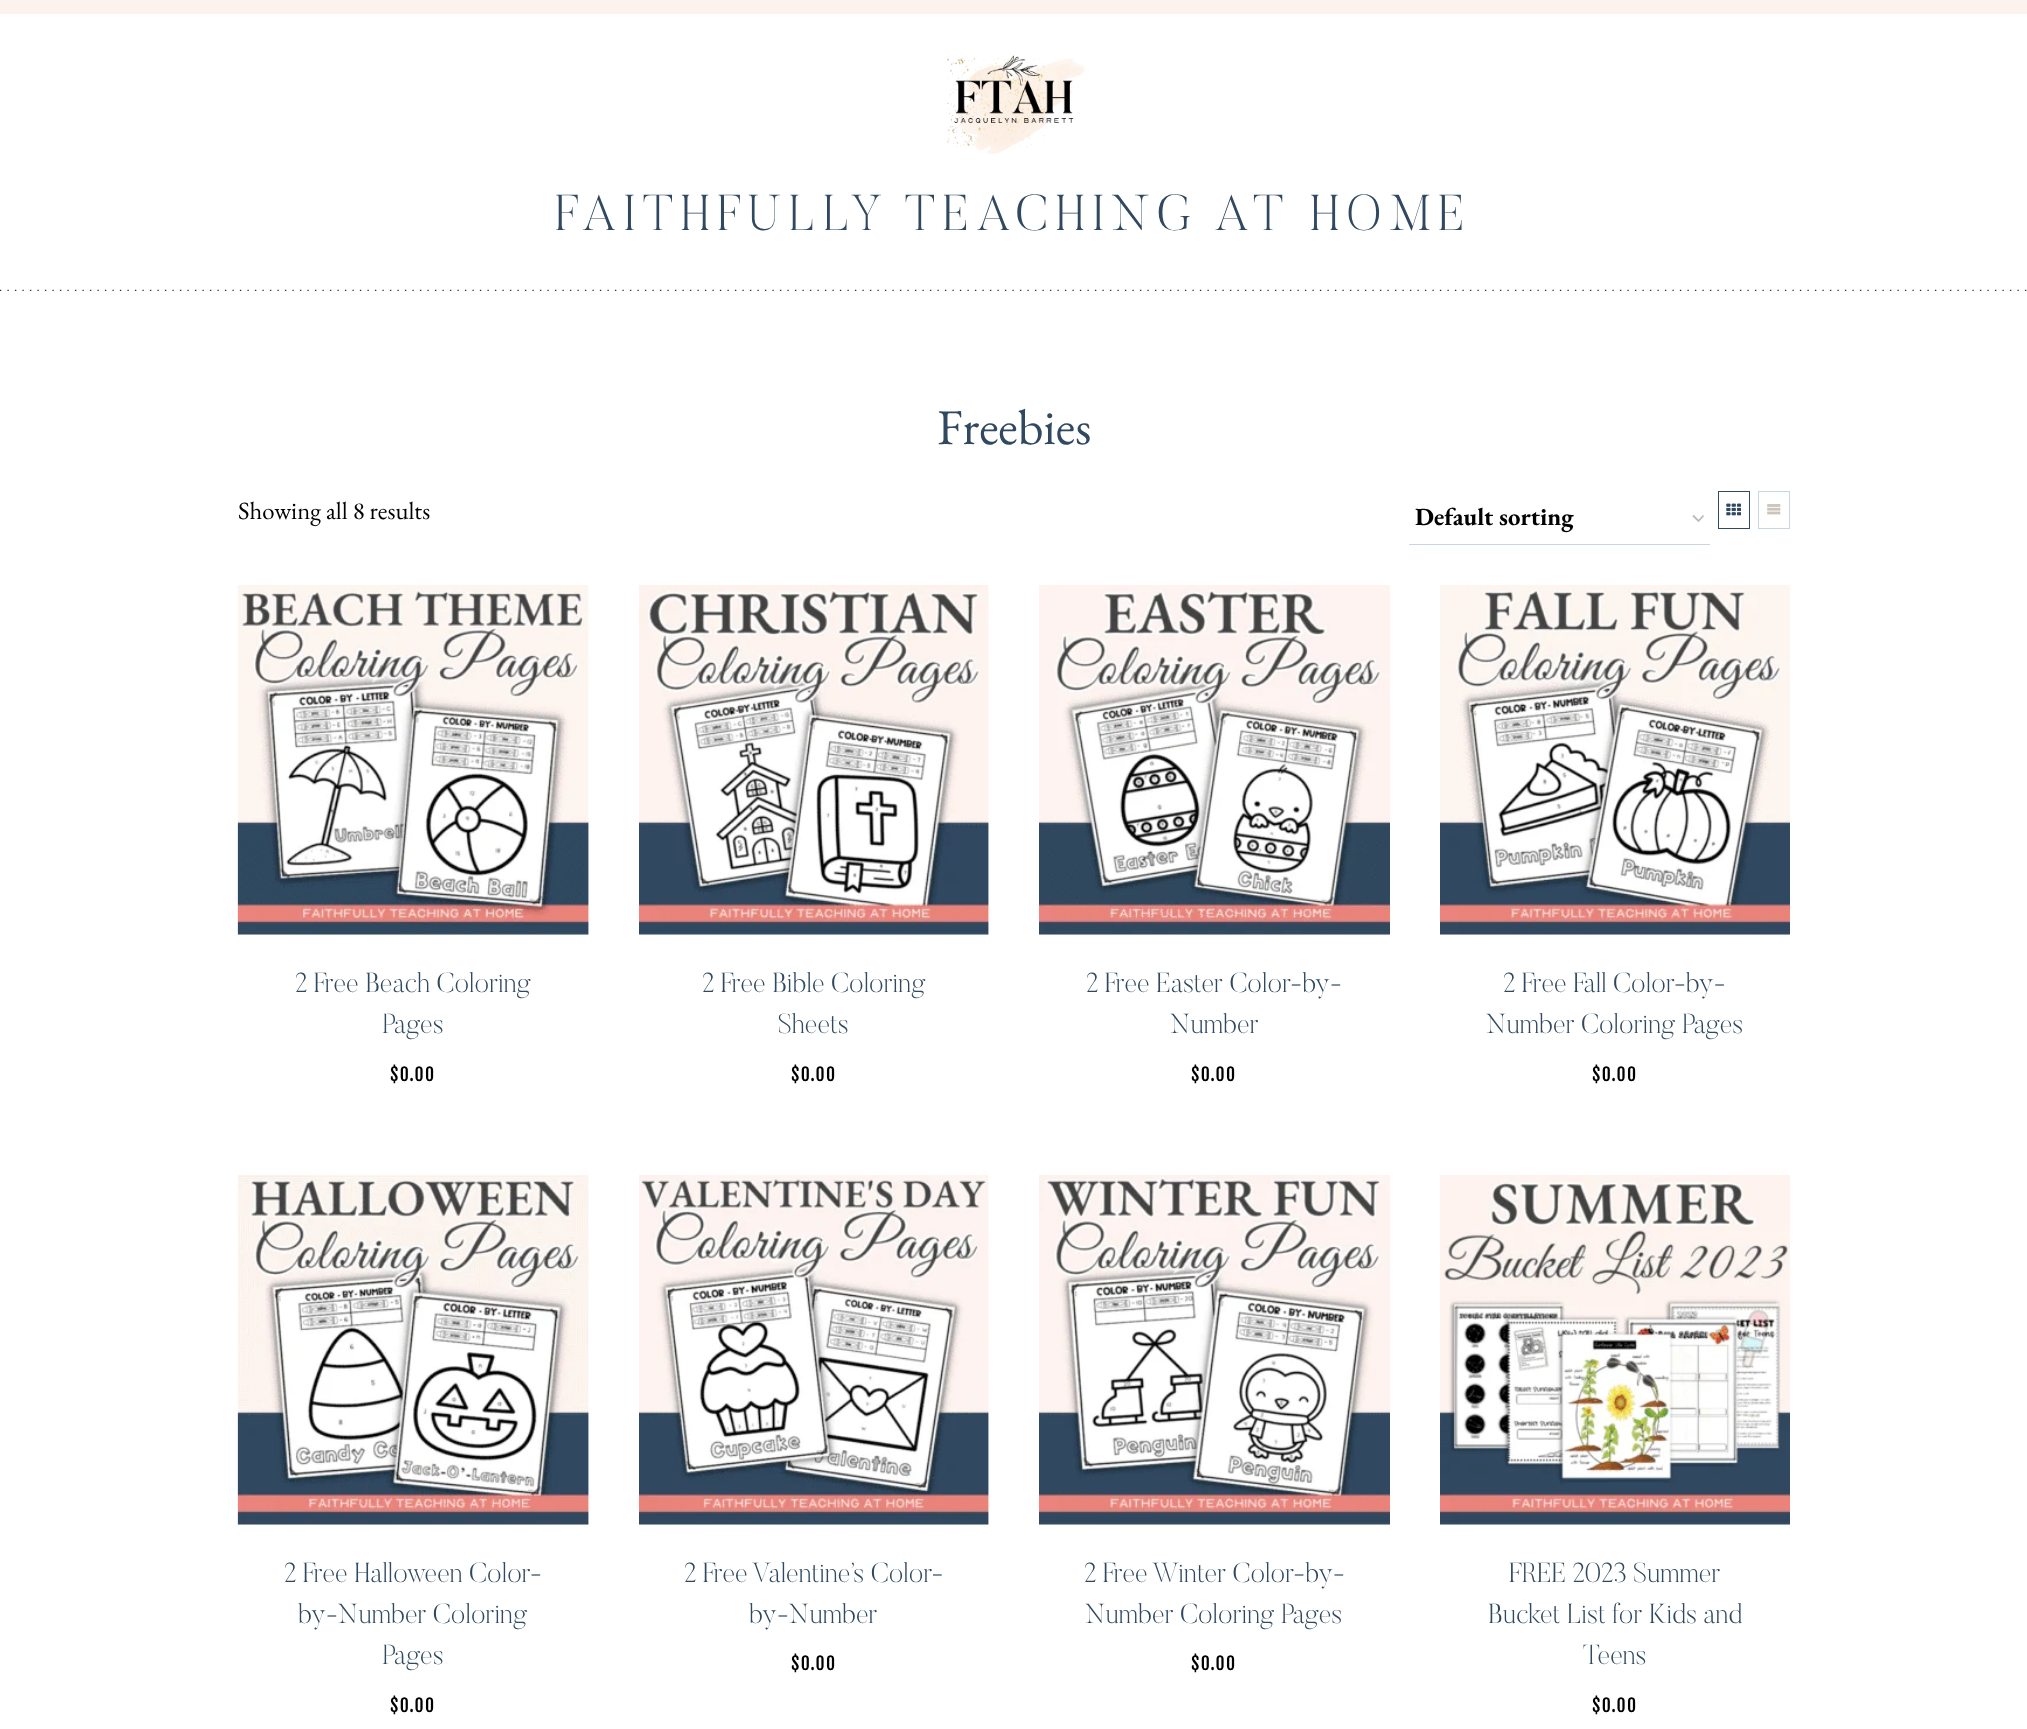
<!DOCTYPE html>
<meta charset="utf-8">
<style>body { margin: 0 } canvas { display: block }</style>
<canvas id="canvas" width="2027" height="1729"></canvas>
<script type="module">
  const canvas = document.getElementById("canvas");
  const g = canvas.getContext("2d");
  g.miterLimit = 4;
  g.fontKerning = "normal";
  function drawText(s, x, y, [font, color]) {
    g.font = font;
    g.fillStyle = color;
    g.fillText(s, x, y);
  }
  function fillBox(x, y, w, h, color) {
    g.fillStyle = color;
    g.fillRect(x, y, w, h);
  }
  async function drawPicture(src, x, y, w, h) {
    const img = new Image();
    img.src = src;
    await img.decode();
    g.drawImage(img, x, y, w, h);
  }

  const s1 = ["200 50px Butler", "#304960"];
  const s2 = ["50px EB Garamond", "#304960"];
  const s3 = ["24.75px EB Garamond", "#000000"];
  const s4 = ["bold 24.75px EB Garamond", "#000000"];
  const s5 = ["200 27.5px Butler", "#304960"];
  const s6 = ["17.5px Fjalla One", "#000000"];

  fillBox(0, 0, 2027, 1729, "#FFFFFF");
  fillBox(0, 0, 2027, 14, "#FDF3EE");
  await drawPicture("pic1.png", 0, 289, 2027, 2);
  await drawPicture("pic2.png", 947, 55, 139, 100);
  g.letterSpacing = "7.5px";
  drawText("FAITHFULLY TEACHING AT HOME", 555, 230, s1);
  g.letterSpacing = "0px";
  drawText("Freebies", 937, 444, s2);
  drawText("Showing all 8 results", 238, 519, s3);
  g.beginPath();
  g.moveTo(1693, 515.5);
  g.lineTo(1698.5, 521);
  g.lineTo(1703.5, 515.5);
  g.strokeStyle = "#BBBBBB";
  g.lineWidth = 1.8;
  g.stroke();
  fillBox(1409, 544, 301, 1, "#CBD5E0");
  drawText("Default sorting", 1415, 525, s4);
  g.strokeStyle = "#304960";
  g.lineWidth = 1;
  g.strokeRect(1718.5, 491.5, 31, 37);
  await drawPicture("pic3.png", 1726, 503, 15, 13);
  g.strokeStyle = "#CBD5E0";
  g.strokeRect(1758.5, 491.5, 31, 37);
  await drawPicture("pic4.png", 1767, 504, 14, 11);
  await drawPicture("pic5.png", 237, 585, 352, 350);
  drawText("2 Free Beach Coloring", 295, 992, s5);
  drawText("Pages", 382, 1033, s5);
  g.letterSpacing = "1.25px";
  drawText("$0.00", 390, 1081, s6);
  await drawPicture("pic6.png", 639, 585, 350, 350);
  g.letterSpacing = "0px";
  drawText("2 Free Bible Coloring", 702, 992, s5);
  drawText("Sheets", 778, 1033, s5);
  g.letterSpacing = "1.25px";
  drawText("$0.00", 791, 1081, s6);
  await drawPicture("pic7.png", 1039, 585, 351, 350);
  g.letterSpacing = "0px";
  drawText("2 Free Easter Color-by-", 1086, 992, s5);
  drawText("Number", 1170, 1033, s5);
  g.letterSpacing = "1.25px";
  drawText("$0.00", 1191, 1081, s6);
  await drawPicture("pic8.png", 1440, 585, 350, 350);
  g.letterSpacing = "0px";
  drawText("2 Free Fall Color-by-", 1503, 992, s5);
  drawText("Number Coloring Pages", 1486, 1033, s5);
  g.letterSpacing = "1.25px";
  drawText("$0.00", 1592, 1081, s6);
  await drawPicture("pic9.png", 237, 1175, 352, 350);
  g.letterSpacing = "0px";
  drawText("2 Free Halloween Color-", 284, 1582, s5);
  drawText("by-Number Coloring", 298, 1623, s5);
  drawText("Pages", 382, 1664, s5);
  g.letterSpacing = "1.25px";
  drawText("$0.00", 390, 1712, s6);
  await drawPicture("pic10.png", 639, 1175, 350, 350);
  g.letterSpacing = "0px";
  drawText("2 Free Valentine’s Color-", 684, 1582, s5);
  drawText("by-Number", 749, 1623, s5);
  g.letterSpacing = "1.25px";
  drawText("$0.00", 791, 1670, s6);
  await drawPicture("pic11.png", 1039, 1175, 351, 350);
  g.letterSpacing = "0px";
  drawText("2 Free Winter Color-by-", 1084, 1582, s5);
  drawText("Number Coloring Pages", 1085, 1623, s5);
  g.letterSpacing = "1.25px";
  drawText("$0.00", 1191, 1670, s6);
  await drawPicture("pic12.png", 1440, 1175, 350, 350);
  g.letterSpacing = "0px";
  drawText("FREE 2023 Summer", 1509, 1582, s5);
  drawText("Bucket List for Kids and", 1488, 1623, s5);
  drawText("Teens", 1583, 1664, s5);
  g.letterSpacing = "1.25px";
  drawText("$0.00", 1592, 1712, s6);
</script>
